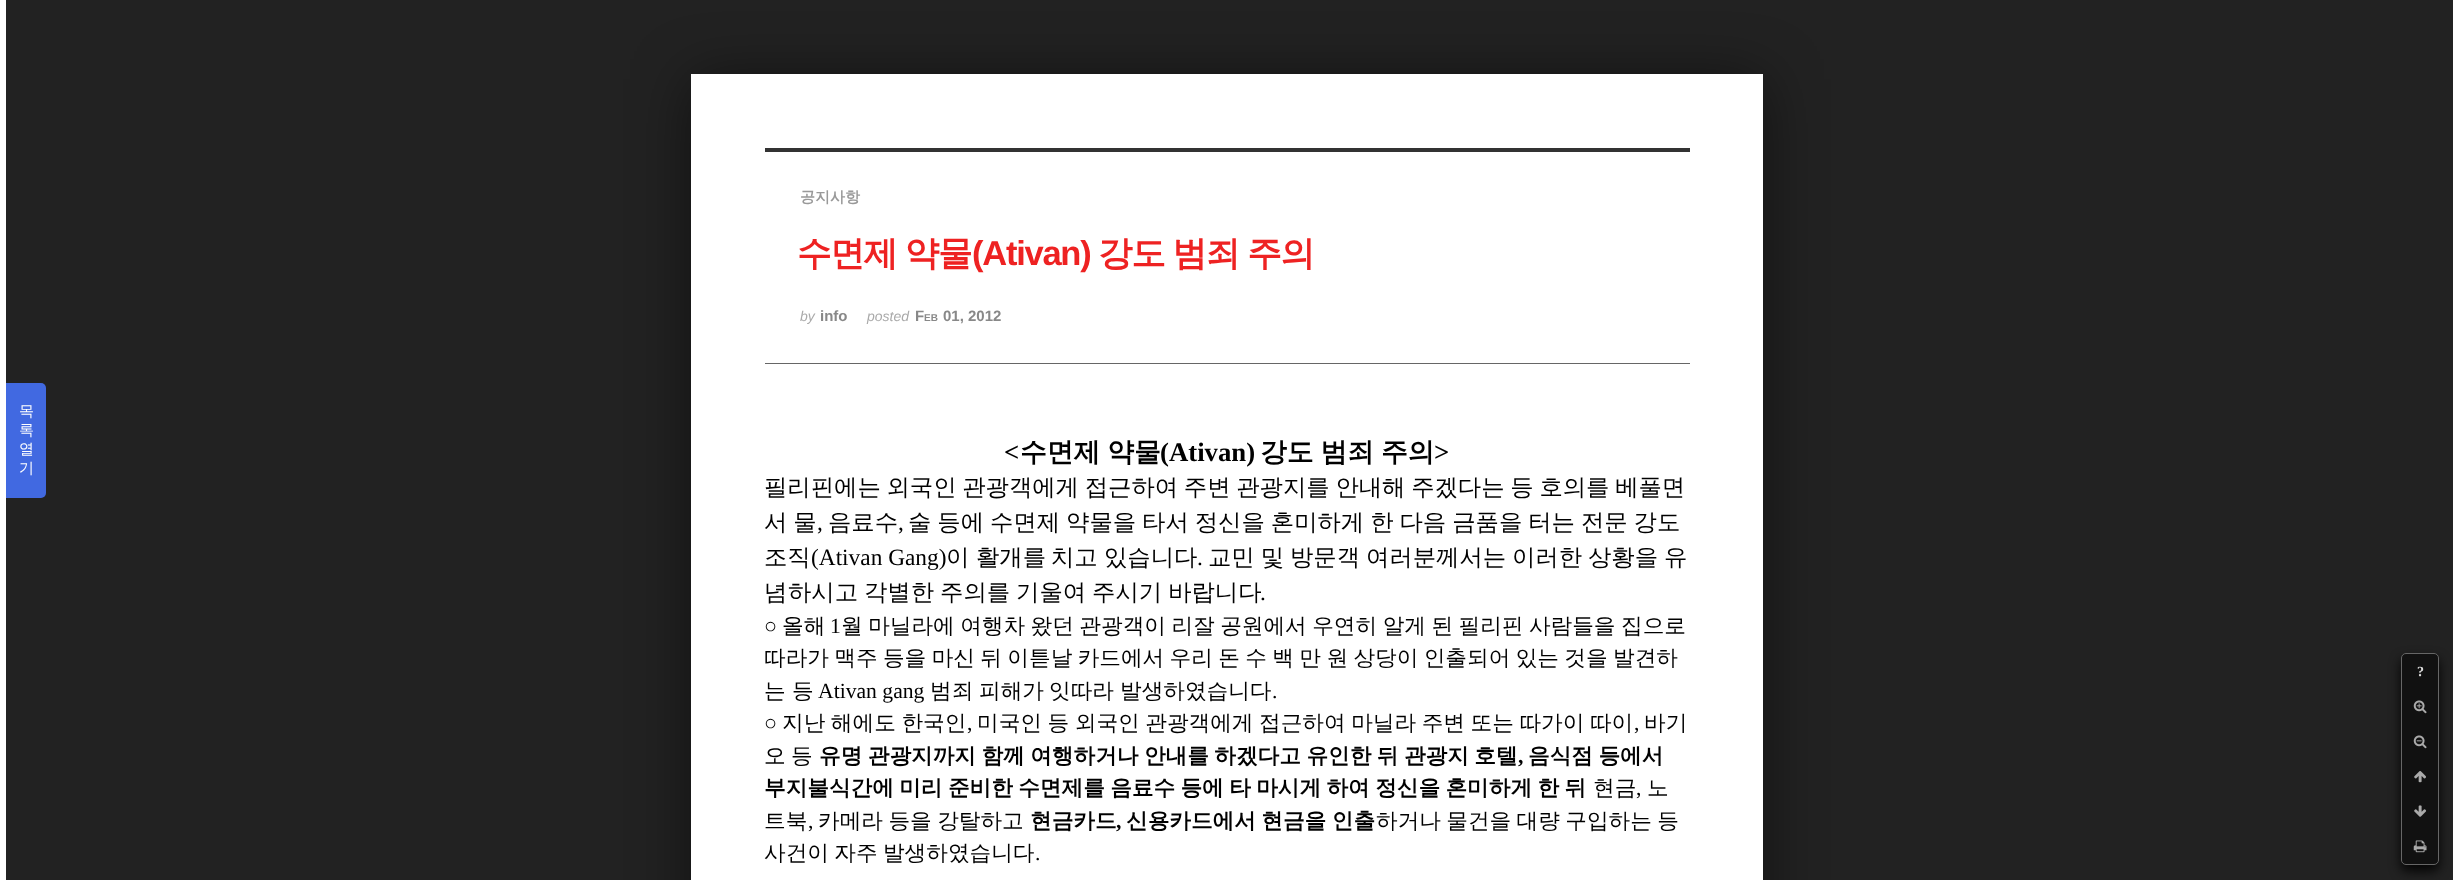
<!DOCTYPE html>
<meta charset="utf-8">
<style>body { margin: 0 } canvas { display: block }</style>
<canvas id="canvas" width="2453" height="880"></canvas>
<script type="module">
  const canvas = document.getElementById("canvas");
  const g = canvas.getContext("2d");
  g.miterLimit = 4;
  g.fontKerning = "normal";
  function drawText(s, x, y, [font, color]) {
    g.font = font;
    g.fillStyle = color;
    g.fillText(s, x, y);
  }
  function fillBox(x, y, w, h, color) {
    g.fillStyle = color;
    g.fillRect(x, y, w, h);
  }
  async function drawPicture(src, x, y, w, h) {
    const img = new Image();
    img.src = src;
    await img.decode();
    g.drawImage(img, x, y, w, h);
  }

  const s1 = ["500 15px WenQuanYi Zen Hei", "#FFFFFF"];
  const s2 = ["bold 15px WenQuanYi Zen Hei", "#999999"];
  const s3 = ["bold 34.5px WenQuanYi Zen Hei", "#EE2222"];
  const s4 = ["bold 34.5px Liberation Sans", "#EE2222"];
  const s5 = ["italic 14px Liberation Sans", "#AAAAAA"];
  const s6 = ["bold 15px Liberation Sans", "#888888"];
  const s7 = ["bold 10px Liberation Sans", "#888888"];
  const s8 = ["bold 14px Liberation Serif", "#DDDDDD"];
  const s9 = ["bold 26.75px Liberation Serif", "#000000"];
  const s10 = ["bold 26.75px WenQuanYi Zen Hei", "#000000"];
  const s11 = ["500 23.35px WenQuanYi Zen Hei", "#000000"];
  const s12 = ["23.35px Liberation Serif", "#000000"];
  const s13 = ["21.65px Liberation Serif", "#000000"];
  const s14 = ["500 21.65px WenQuanYi Zen Hei", "#000000"];
  const s15 = ["bold 21.65px WenQuanYi Zen Hei", "#000000"];
  const s16 = ["bold 21.65px Liberation Serif", "#000000"];

  fillBox(0, 0, 2453, 880, "#222222");
  g.fillStyle = "rgba(0, 0, 0, 0.5)";
  g.filter = "blur(30px)";
  g.beginPath();
  g.rect(691, 79, 1072, 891);
  g.fill();
  g.filter = "none";
  fillBox(691, 74, 1072, 806, "#FFFFFF");
  fillBox(0, 0, 6, 880, "#FFFFFF");
  g.fillStyle = "#4169E1";
  g.beginPath();
  g.roundRect(6, 383, 40, 115, [0, 5, 5, 0]);
  g.fill();
  drawText("목", 19, 416, s1);
  drawText("록", 19, 435, s1);
  drawText("열", 19, 454, s1);
  drawText("기", 19, 473, s1);
  fillBox(765, 148, 925, 4, "#333333");
  fillBox(765, 363, 925, 1, "#666666");
  drawText("공지사항", 800, 202, s2);
  g.letterSpacing = "-1.25px";
  g.wordSpacing = "-1px";
  drawText("수면제 약물", 797, 265, s3);
  g.wordSpacing = "0px";
  drawText("(Ativan)", 972, 265, s4);
  g.wordSpacing = "-1px";
  drawText("강도 범죄 주의", 1098, 265, s3);
  g.letterSpacing = "0px";
  g.wordSpacing = "0px";
  drawText("by", 800, 321, s5);
  drawText("info", 820, 321, s6);
  drawText("posted", 867, 321, s5);
  drawText("F", 915, 321, s6);
  drawText("EB", 924, 321, s7);
  drawText("01, 2012", 943, 321, s6);
  g.fillStyle = "rgba(0, 0, 0, 0.9)";
  g.filter = "blur(6px)";
  g.beginPath();
  g.roundRect(2401, 659, 38, 212, 5);
  g.fill();
  g.filter = "none";
  g.fillStyle = "#111111";
  g.beginPath();
  g.roundRect(2401.5, 653.5, 37, 211, 4.5);
  g.fill();
  g.strokeStyle = "#666666";
  g.stroke();
  g.letterSpacing = "-1.25px";
  drawText("?", 2417, 676, s8);
  await drawPicture("pic1.png", 2413, 700, 14, 14);
  await drawPicture("pic2.png", 2413, 735, 14, 14);
  await drawPicture("pic3.png", 2414, 771, 12, 12);
  await drawPicture("pic4.png", 2414, 805, 13, 12);
  await drawPicture("pic5.png", 2413, 840, 14, 13);
  g.letterSpacing = "0px";
  drawText("<", 1004, 461, s9);
  g.wordSpacing = "-1px";
  drawText("수면제 약물", 1020, 461, s10);
  g.wordSpacing = "0px";
  drawText("(Ativan)", 1160, 461, s9);
  g.wordSpacing = "-1px";
  drawText("강도 범죄 주의", 1260, 461, s10);
  g.wordSpacing = "0px";
  drawText(">", 1434, 461, s9);
  g.wordSpacing = "-1.25px";
  drawText("필리핀에는 외국인 관광객에게 접근하여 주변 관광지를 안내해 주겠다는 등 호의를 베풀면", 764, 495, s11);
  g.wordSpacing = "-1px";
  drawText("서 물", 764, 530, s11);
  g.wordSpacing = "0px";
  drawText(",", 817, 530, s12);
  drawText("음료수", 828, 530, s11);
  drawText(",", 898, 530, s12);
  g.wordSpacing = "-1px";
  drawText("술 등에 수면제 약물을 타서 정신을 혼미하게 한 다음 금품을 터는 전문 강도", 908, 530, s11);
  g.wordSpacing = "0px";
  drawText("조직", 764, 565, s11);
  drawText("(Ativan Gang)", 811, 565, s12);
  drawText("이", 946, 565, s11);
  drawText("활개를", 976, 565, s11);
  drawText("치고", 1051, 565, s11);
  drawText("있습니다", 1104, 565, s11);
  drawText(".", 1197, 565, s12);
  g.wordSpacing = "-1px";
  drawText("교민 및", 1208, 565, s11);
  drawText("방문객 여러분께서는", 1290, 565, s11);
  drawText("이러한 상황을 유", 1512, 565, s11);
  g.wordSpacing = "0px";
  drawText("념", 764, 600, s11);
  g.wordSpacing = "-1px";
  drawText("하시고 각별한 주의를 기울여 주시기 바랍니다", 788, 600, s11);
  g.wordSpacing = "0px";
  drawText(".", 1260, 600, s12);
  drawText("○", 764, 633, s13);
  drawText("올해", 782, 633, s14);
  drawText("1", 830, 633, s13);
  g.wordSpacing = "-1px";
  drawText("월 마닐라에 여행차 왔던 관광객이 리잘 공원에서 우연히 알게 된 필리핀 사람들을 집으로", 841, 633, s14);
  g.wordSpacing = "-1.1px";
  drawText("따라가 맥주 등을 마신 뒤 이튿날 카드에서 우리 돈 수 백 만 원 상당이 인출되어 있는 것을 발견하", 764, 665, s14);
  g.wordSpacing = "0px";
  drawText("는", 764, 698, s14);
  drawText("등", 792, 698, s14);
  drawText("Ativan gang", 818, 698, s13);
  drawText("범죄", 930, 698, s14);
  drawText("피해가", 979, 698, s14);
  drawText("잇따라", 1049, 698, s14);
  drawText("발생하였습니다", 1120, 698, s14);
  drawText(".", 1272, 698, s13);
  drawText("○", 764, 730, s13);
  g.wordSpacing = "-0.9px";
  drawText("지난 해에도 한국인", 782, 730, s14);
  drawText("미국인 등 외국인 관광객에게 접근하여 마닐라 주변 또는 따가이 따이", 977, 730, s14);
  g.wordSpacing = "0px";
  drawText("바기", 1644, 730, s14);
  drawText(",", 967, 730, s13);
  drawText(",", 1634, 730, s13);
  g.wordSpacing = "-1.1px";
  drawText("오 등", 764, 763, s14);
  g.wordSpacing = "-1px";
  drawText("유명 관광지까지 함께 여행하거나 안내를 하겠다고 유인한 뒤 관광지 호텔", 819, 763, s15);
  g.wordSpacing = "0px";
  drawText(",", 1518, 763, s16);
  g.wordSpacing = "-1px";
  drawText("음식점 등에서", 1528, 763, s15);
  g.wordSpacing = "-1.1px";
  drawText("부지불식간에 미리 준비한 수면제를 음료수 등에 타 마시게 하여 정신을 혼미하게 한 뒤", 764, 795, s15);
  g.wordSpacing = "0px";
  drawText("현금", 1593, 795, s14);
  drawText(",", 1636, 795, s13);
  drawText("노", 1647, 795, s14);
  drawText("트북", 764, 828, s14);
  drawText(",", 808, 828, s13);
  g.wordSpacing = "-1px";
  drawText("카메라 등을 강탈하고", 818, 828, s14);
  g.wordSpacing = "0px";
  drawText("현금카드", 1030, 828, s15);
  drawText(",", 1116, 828, s16);
  g.wordSpacing = "-1px";
  drawText("신용카드에서 현금을 인출", 1126, 828, s15);
  g.wordSpacing = "-1.1px";
  drawText("하거나 물건을 대량 구입하는 등", 1376, 828, s14);
  drawText("사건이 자주 발생하였습니다", 764, 860, s14);
  g.wordSpacing = "0px";
  drawText(".", 1035, 860, s13);
</script>
